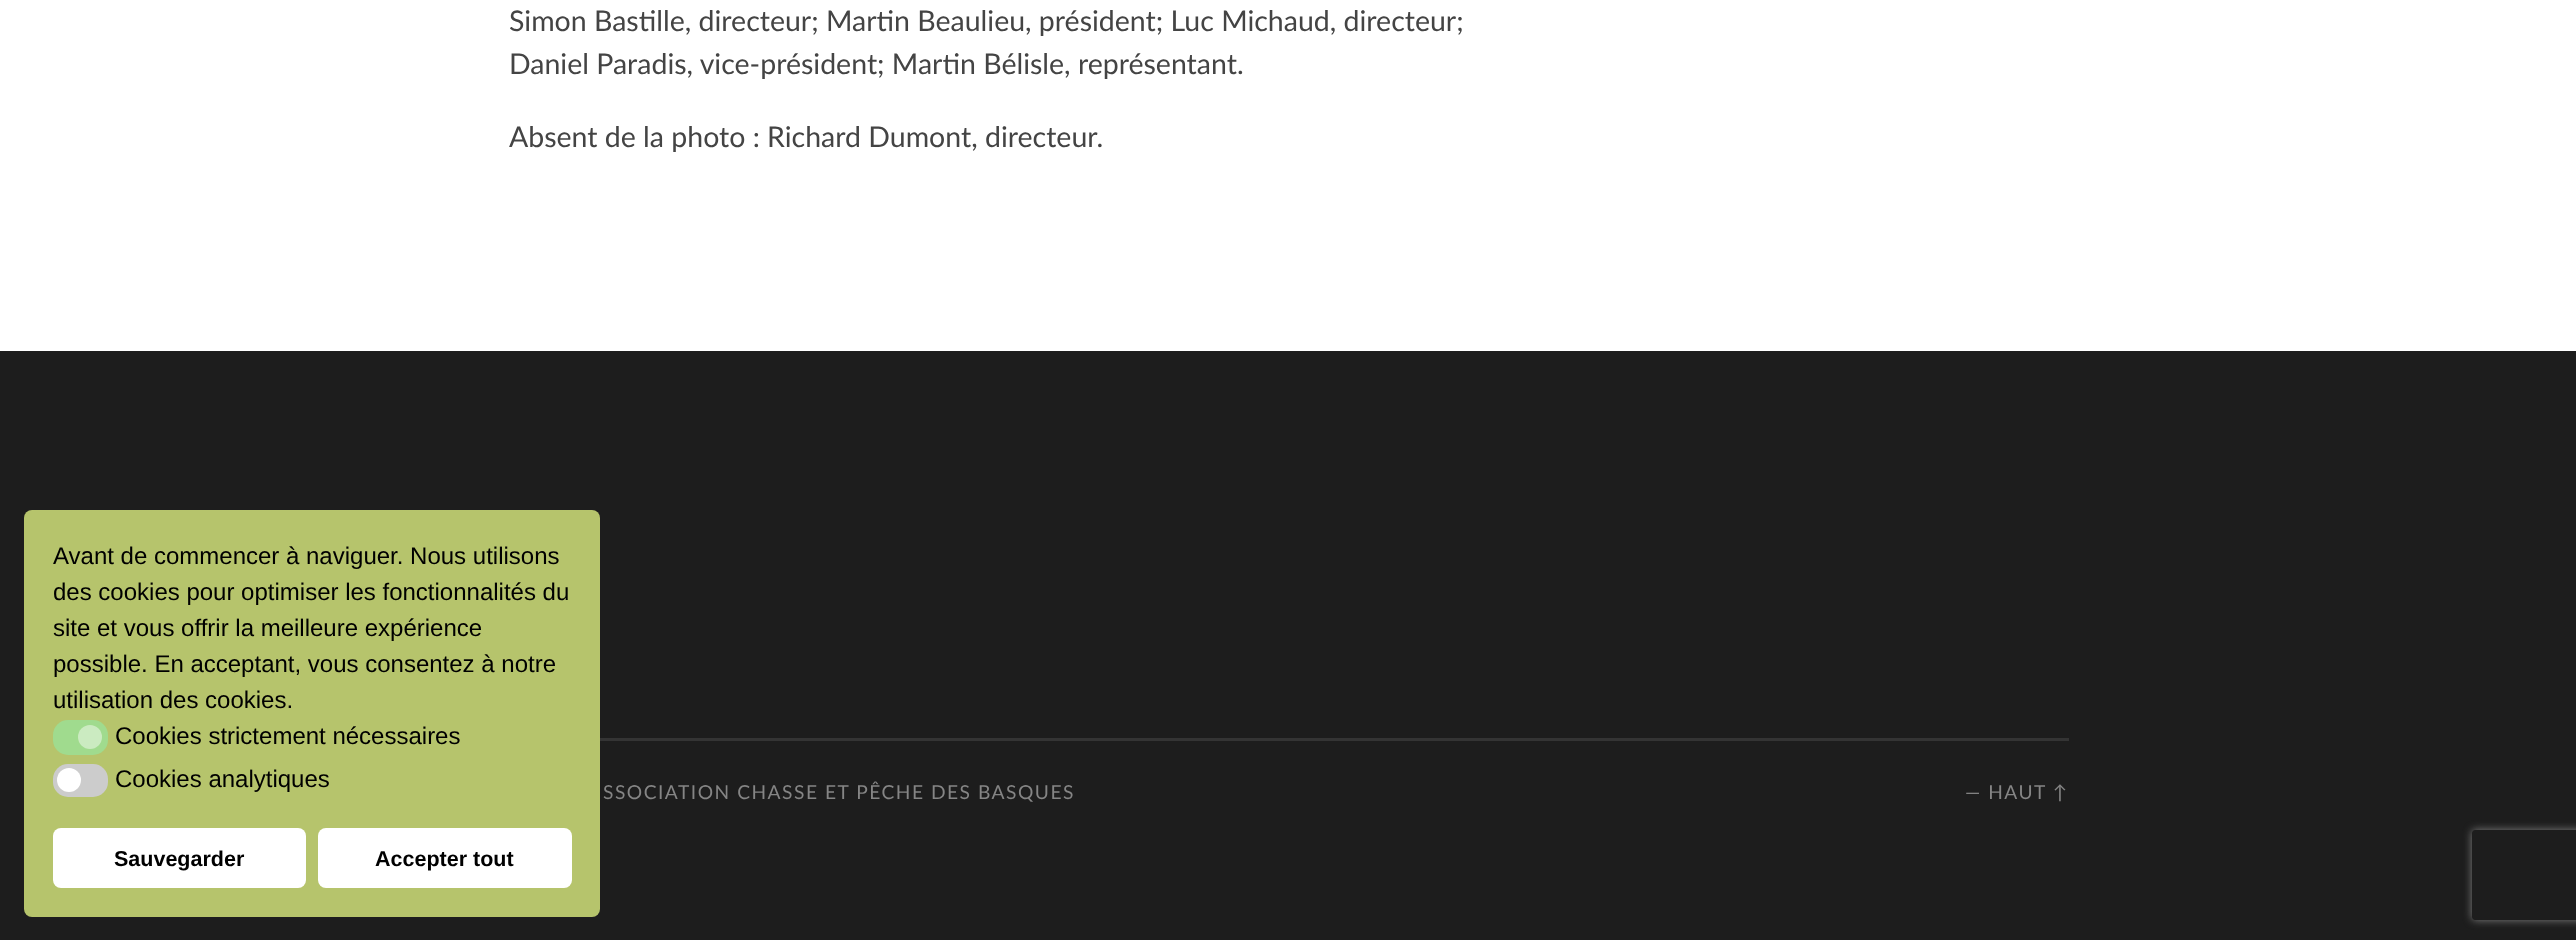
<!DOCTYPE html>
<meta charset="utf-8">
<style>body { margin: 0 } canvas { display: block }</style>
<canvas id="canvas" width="2576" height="940"></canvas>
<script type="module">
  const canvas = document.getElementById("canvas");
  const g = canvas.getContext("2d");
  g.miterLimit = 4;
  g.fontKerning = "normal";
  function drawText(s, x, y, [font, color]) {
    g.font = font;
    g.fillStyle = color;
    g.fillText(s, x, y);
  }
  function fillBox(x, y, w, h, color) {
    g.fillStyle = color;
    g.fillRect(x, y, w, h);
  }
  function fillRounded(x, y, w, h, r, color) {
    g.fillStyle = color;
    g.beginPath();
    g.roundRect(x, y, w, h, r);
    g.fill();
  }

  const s1 = ["24px Liberation Sans", "#000000"];
  const s2 = ["bold 21.5px Liberation Sans", "#000000"];
  const s3 = ["28.5px Lato", "#444444"];
  const s4 = ["19.2px Lato", "#858585"];

  fillBox(0, 0, 2576, 940, "#FFFFFF");
  fillBox(0, 351, 2576, 589, "#1D1D1D");
  fillRounded(24, 510, 576, 407, 8, "#B6C46C");
  drawText("Avant de commencer à naviguer. Nous utilisons", 53, 564, s1);
  drawText("des cookies pour optimiser les fonctionnalités du", 53, 600, s1);
  drawText("site et vous offrir la meilleure expérience", 53, 636, s1);
  drawText("possible. En acceptant, vous consentez à notre", 53, 672, s1);
  drawText("utilisation des cookies.", 53, 708, s1);
  fillRounded(53, 720, 55, 35, 15, "#A0DB8E");
  g.fillStyle = "#CBEBC1";
  g.beginPath();
  g.arc(90, 737, 12, 0, Math.PI * 2);
  g.fill();
  drawText("Cookies strictement nécessaires", 115, 744, s1);
  fillRounded(53, 764, 55, 33, 15, "#CCCCCC");
  g.fillStyle = "#FFFFFF";
  g.beginPath();
  g.arc(69, 780, 12, 0, Math.PI * 2);
  g.fill();
  drawText("Cookies analytiques", 115, 787, s1);
  fillRounded(53, 828, 253, 60, 8, "#FFFFFF");
  drawText("Sauvegarder", 114, 866, s2);
  fillRounded(318, 828, 254, 60, 8, "#FFFFFF");
  drawText("Accepter tout", 375, 866, s2);
  drawText("Simon Bastille, directeur; Martin Beaulieu, président; Luc Michaud, directeur;", 509, 31, s3);
  drawText("Daniel Paradis, vice-président; Martin Bélisle, représentant.", 509, 74, s3);
  drawText("Absent de la photo : Richard Dumont, directeur.", 509, 147, s3);
  fillBox(600, 738, 1469, 3, "#343434");
  g.letterSpacing = "1.5px";
  drawText("SSOCIATION CHASSE ET PÊCHE DES BASQUES", 603, 799, s4);
  drawText("— HAUT ↑", 1965, 799, s4);
  g.save();
  g.beginPath();
  g.moveTo(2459, 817);
  g.lineTo(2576, 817);
  g.lineTo(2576, 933);
  g.lineTo(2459, 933);
  g.closePath();
  g.moveTo(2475, 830);
  g.lineTo(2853, 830);
  g.bezierCurveTo(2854.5, 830, 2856, 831.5, 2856, 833);
  g.lineTo(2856, 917);
  g.bezierCurveTo(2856, 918.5, 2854.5, 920, 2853, 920);
  g.lineTo(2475, 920);
  g.bezierCurveTo(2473.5, 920, 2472, 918.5, 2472, 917);
  g.lineTo(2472, 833);
  g.bezierCurveTo(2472, 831.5, 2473.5, 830, 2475, 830);
  g.closePath();
  g.clip("evenodd");
  g.fillStyle = "#808080";
  g.filter = "blur(4px)";
  g.beginPath();
  g.roundRect(2472, 830, 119, 90, 3);
  g.fill();
  g.filter = "none";
  g.restore();
</script>
